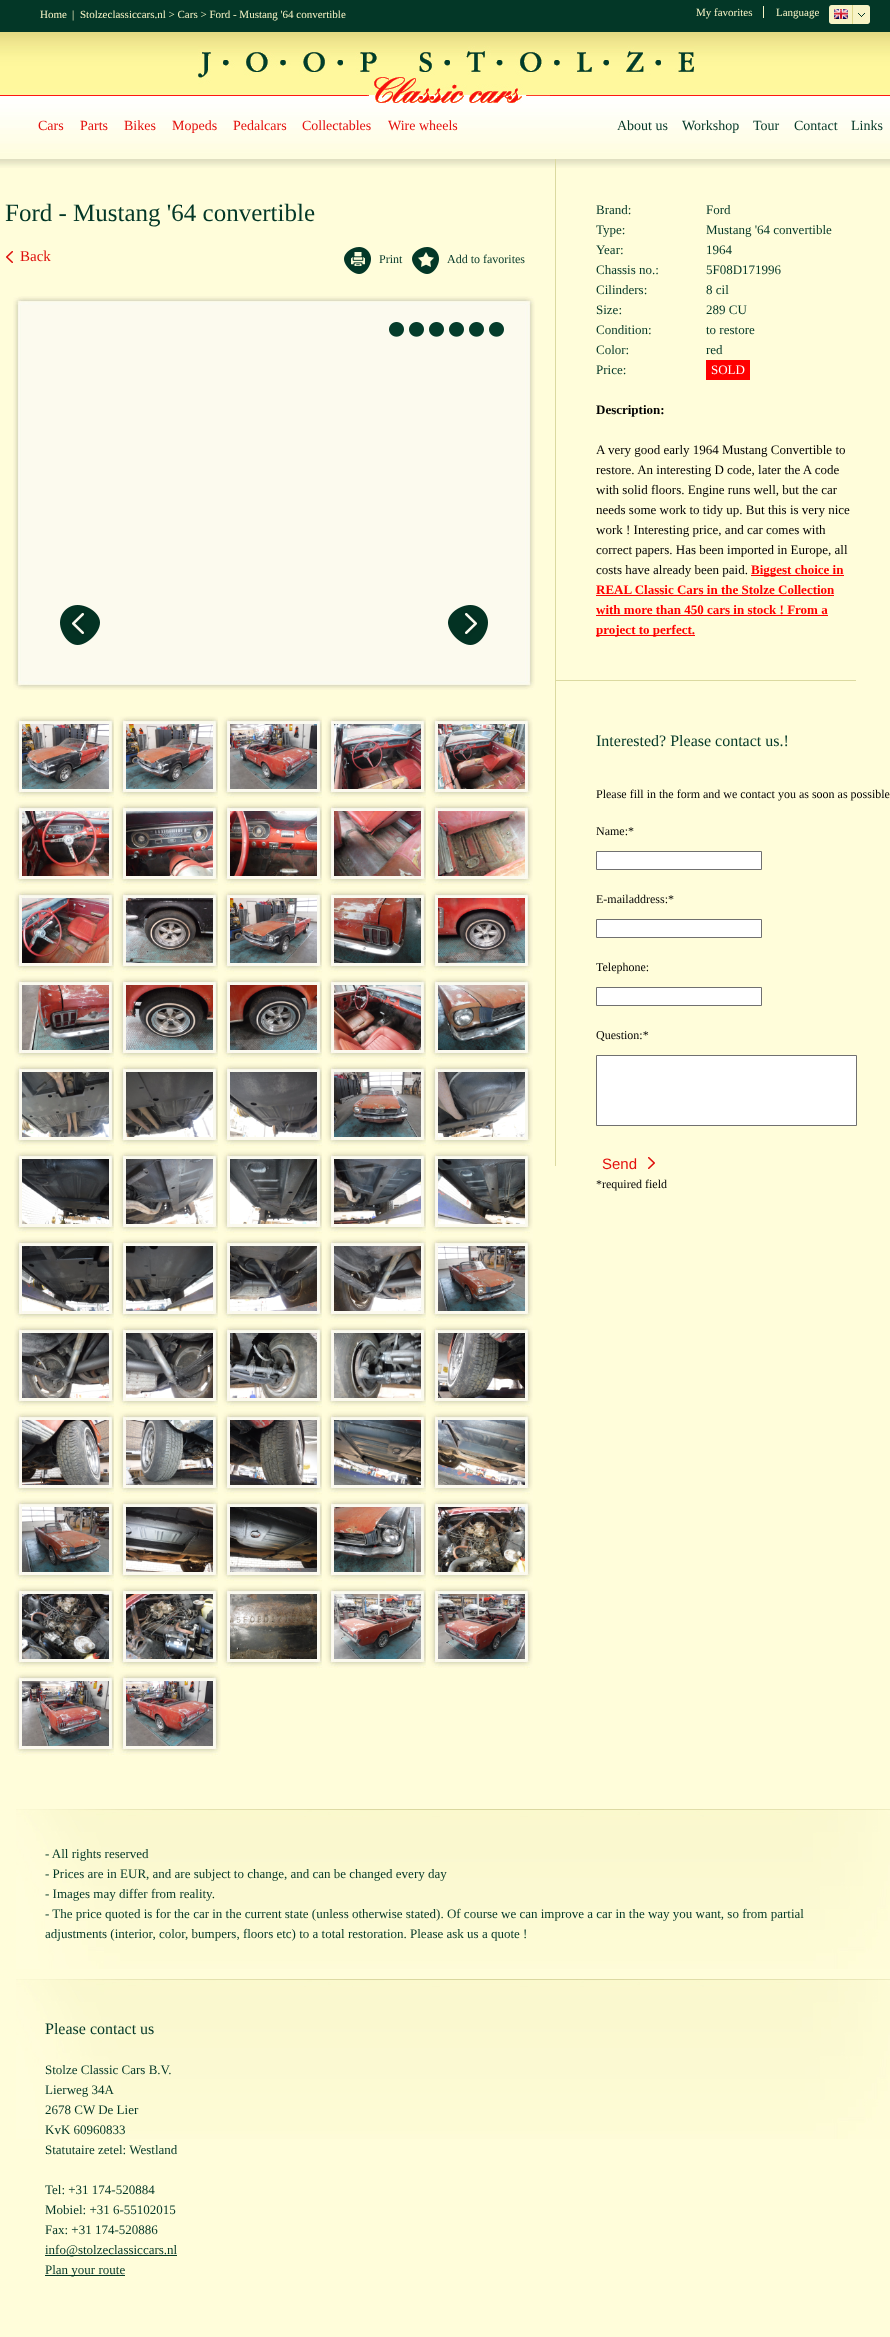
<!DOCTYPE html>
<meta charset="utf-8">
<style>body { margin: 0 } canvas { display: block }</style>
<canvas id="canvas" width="890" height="2337"></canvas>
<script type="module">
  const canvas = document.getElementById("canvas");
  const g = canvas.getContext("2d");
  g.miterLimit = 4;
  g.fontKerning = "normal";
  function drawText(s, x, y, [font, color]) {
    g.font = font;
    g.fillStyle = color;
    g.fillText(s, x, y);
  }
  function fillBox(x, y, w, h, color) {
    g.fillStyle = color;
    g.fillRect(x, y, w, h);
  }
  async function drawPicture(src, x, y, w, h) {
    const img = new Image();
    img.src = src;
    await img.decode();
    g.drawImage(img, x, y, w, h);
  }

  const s1 = ["11px Liberation Serif", "#F7F3C5"];
  const s2 = ["14px Liberation Serif", "#E4100D"];
  const s3 = ["14px Liberation Serif", "#033727"];
  const s4 = ["25px Liberation Serif", "#033727"];
  const s5 = ["15px Liberation Serif", "#DE100D"];
  const s6 = ["12px Liberation Serif", "#033727"];
  const s7 = ["13px Liberation Serif", "#033727"];
  const s8 = ["13px Liberation Serif", "#FFFFFF"];
  const s9 = ["bold 13px Liberation Serif", "#000000"];
  const s10 = ["13px Liberation Serif", "#000000"];
  const s11 = ["bold 13px Liberation Serif", "#FF0000"];
  const s12 = ["16px Liberation Serif", "#033727"];
  const s13 = ["12px Liberation Serif", "#000000"];
  const s14 = ["15px Liberation Sans", "#E4100D"];

  fillBox(0, 0, 890, 2337, "#FFFDDA");
  fillBox(0, 0, 890, 32, "#033727");
  drawText("Home", 40, 18, s1);
  drawText("|", 72, 18, s1);
  drawText("Stolzeclassiccars.nl > Cars > Ford - Mustang '64 convertible", 80, 18, s1);
  fillBox(763, 6, 1, 12, "#F7F3C5");
  drawText("My favorites", 696, 16, s1);
  drawText("Language", 776, 16, s1);
  await drawPicture("pic1.png", 829, 5, 41, 19);
  await drawPicture("pic2.png", 834, 9, 14, 10);
  await drawPicture("pic3.png", 0, 32, 890, 127);
  await drawPicture("pic4.png", 198, 46, 496, 58);
  drawText("Cars", 38, 130, s2);
  drawText("Parts", 80, 130, s2);
  drawText("Bikes", 124, 130, s2);
  drawText("Mopeds", 172, 130, s2);
  drawText("Pedalcars", 233, 130, s2);
  drawText("Collectables", 302, 130, s2);
  drawText("Wire wheels", 388, 130, s2);
  drawText("About us", 617, 130, s3);
  drawText("Workshop", 682, 130, s3);
  drawText("Tour", 753, 130, s3);
  drawText("Contact", 794, 130, s3);
  drawText("Links", 851, 130, s3);
  await drawPicture("pic5.png", 0, 159, 890, 9);
  drawText("Ford - Mustang '64 convertible", 5, 221, s4);
  await drawPicture("pic6.png", 6, 251, 7, 12);
  drawText("Back", 20, 261, s5);
  await drawPicture("pic7.png", 344, 247, 27, 27);
  drawText("Print", 379, 263, s6);
  await drawPicture("pic8.png", 412, 247, 27, 27);
  drawText("Add to favorites", 447, 263, s6);
  await drawPicture("pic9.png", 13, 296, 522, 394);
  await drawPicture("pic10.png", 389, 322, 15, 15);
  await drawPicture("pic10.png", 409, 322, 15, 15);
  await drawPicture("pic10.png", 429, 322, 15, 15);
  await drawPicture("pic10.png", 449, 322, 15, 15);
  await drawPicture("pic10.png", 469, 322, 15, 15);
  await drawPicture("pic10.png", 489, 322, 15, 15);
  await drawPicture("pic11.png", 60, 605, 40, 40);
  await drawPicture("pic12.png", 448, 605, 40, 40);
  await drawPicture("pic13.png", 14, 716, 100, 82);
  await drawPicture("pic14.png", 22, 724, 87, 65);
  await drawPicture("pic15.png", 114, 716, 104, 82);
  await drawPicture("pic16.png", 126, 724, 87, 65);
  await drawPicture("pic15.png", 218, 716, 104, 82);
  await drawPicture("pic17.png", 230, 724, 87, 65);
  await drawPicture("pic15.png", 322, 716, 104, 82);
  await drawPicture("pic18.png", 334, 724, 87, 65);
  await drawPicture("pic19.png", 426, 716, 107, 82);
  await drawPicture("pic20.png", 438, 724, 87, 65);
  await drawPicture("pic21.png", 14, 798, 100, 87);
  await drawPicture("pic22.png", 22, 811, 87, 65);
  await drawPicture("pic23.png", 114, 798, 104, 87);
  await drawPicture("pic24.png", 126, 811, 87, 65);
  await drawPicture("pic23.png", 218, 798, 104, 87);
  await drawPicture("pic25.png", 230, 811, 87, 65);
  await drawPicture("pic23.png", 322, 798, 104, 87);
  await drawPicture("pic26.png", 334, 811, 87, 65);
  await drawPicture("pic27.png", 426, 798, 107, 87);
  await drawPicture("pic28.png", 438, 811, 87, 65);
  await drawPicture("pic21.png", 14, 885, 100, 87);
  await drawPicture("pic29.png", 22, 898, 87, 65);
  await drawPicture("pic23.png", 114, 885, 104, 87);
  await drawPicture("pic30.png", 126, 898, 87, 65);
  await drawPicture("pic23.png", 218, 885, 104, 87);
  await drawPicture("pic31.png", 230, 898, 87, 65);
  await drawPicture("pic23.png", 322, 885, 104, 87);
  await drawPicture("pic32.png", 334, 898, 87, 65);
  await drawPicture("pic27.png", 426, 885, 107, 87);
  await drawPicture("pic33.png", 438, 898, 87, 65);
  await drawPicture("pic21.png", 14, 972, 100, 87);
  await drawPicture("pic34.png", 22, 985, 87, 65);
  await drawPicture("pic23.png", 114, 972, 104, 87);
  await drawPicture("pic35.png", 126, 985, 87, 65);
  await drawPicture("pic23.png", 218, 972, 104, 87);
  await drawPicture("pic36.png", 230, 985, 87, 65);
  await drawPicture("pic23.png", 322, 972, 104, 87);
  await drawPicture("pic37.png", 334, 985, 87, 65);
  await drawPicture("pic27.png", 426, 972, 107, 87);
  await drawPicture("pic38.png", 438, 985, 87, 65);
  await drawPicture("pic21.png", 14, 1059, 100, 87);
  await drawPicture("pic39.png", 22, 1072, 87, 65);
  await drawPicture("pic23.png", 114, 1059, 104, 87);
  await drawPicture("pic40.png", 126, 1072, 87, 65);
  await drawPicture("pic23.png", 218, 1059, 104, 87);
  await drawPicture("pic41.png", 230, 1072, 87, 65);
  await drawPicture("pic23.png", 322, 1059, 104, 87);
  await drawPicture("pic42.png", 334, 1072, 87, 65);
  await drawPicture("pic27.png", 426, 1059, 107, 87);
  await drawPicture("pic43.png", 438, 1072, 87, 65);
  await drawPicture("pic21.png", 14, 1146, 100, 87);
  await drawPicture("pic44.png", 22, 1159, 87, 65);
  await drawPicture("pic23.png", 114, 1146, 104, 87);
  await drawPicture("pic45.png", 126, 1159, 87, 65);
  await drawPicture("pic23.png", 218, 1146, 104, 87);
  await drawPicture("pic46.png", 230, 1159, 87, 65);
  await drawPicture("pic23.png", 322, 1146, 104, 87);
  await drawPicture("pic47.png", 334, 1159, 87, 65);
  await drawPicture("pic27.png", 426, 1146, 107, 87);
  await drawPicture("pic48.png", 438, 1159, 87, 65);
  await drawPicture("pic21.png", 14, 1233, 100, 87);
  await drawPicture("pic49.png", 22, 1246, 87, 65);
  await drawPicture("pic23.png", 114, 1233, 104, 87);
  await drawPicture("pic50.png", 126, 1246, 87, 65);
  await drawPicture("pic23.png", 218, 1233, 104, 87);
  await drawPicture("pic51.png", 230, 1246, 87, 65);
  await drawPicture("pic23.png", 322, 1233, 104, 87);
  await drawPicture("pic52.png", 334, 1246, 87, 65);
  await drawPicture("pic27.png", 426, 1233, 107, 87);
  await drawPicture("pic53.png", 438, 1246, 87, 65);
  await drawPicture("pic21.png", 14, 1320, 100, 87);
  await drawPicture("pic54.png", 22, 1333, 87, 65);
  await drawPicture("pic23.png", 114, 1320, 104, 87);
  await drawPicture("pic55.png", 126, 1333, 87, 65);
  await drawPicture("pic23.png", 218, 1320, 104, 87);
  await drawPicture("pic56.png", 230, 1333, 87, 65);
  await drawPicture("pic23.png", 322, 1320, 104, 87);
  await drawPicture("pic57.png", 334, 1333, 87, 65);
  await drawPicture("pic27.png", 426, 1320, 107, 87);
  await drawPicture("pic58.png", 438, 1333, 87, 65);
  await drawPicture("pic21.png", 14, 1407, 100, 87);
  await drawPicture("pic59.png", 22, 1420, 87, 65);
  await drawPicture("pic23.png", 114, 1407, 104, 87);
  await drawPicture("pic60.png", 126, 1420, 87, 65);
  await drawPicture("pic23.png", 218, 1407, 104, 87);
  await drawPicture("pic61.png", 230, 1420, 87, 65);
  await drawPicture("pic23.png", 322, 1407, 104, 87);
  await drawPicture("pic62.png", 334, 1420, 87, 65);
  await drawPicture("pic27.png", 426, 1407, 107, 87);
  await drawPicture("pic63.png", 438, 1420, 87, 65);
  await drawPicture("pic21.png", 14, 1494, 100, 87);
  await drawPicture("pic64.png", 22, 1507, 87, 65);
  await drawPicture("pic23.png", 114, 1494, 104, 87);
  await drawPicture("pic65.png", 126, 1507, 87, 65);
  await drawPicture("pic23.png", 218, 1494, 104, 87);
  await drawPicture("pic66.png", 230, 1507, 87, 65);
  await drawPicture("pic23.png", 322, 1494, 104, 87);
  await drawPicture("pic67.png", 334, 1507, 87, 65);
  await drawPicture("pic27.png", 426, 1494, 107, 87);
  await drawPicture("pic68.png", 438, 1507, 87, 65);
  await drawPicture("pic21.png", 14, 1581, 100, 87);
  await drawPicture("pic69.png", 22, 1594, 87, 65);
  await drawPicture("pic23.png", 114, 1581, 104, 87);
  await drawPicture("pic70.png", 126, 1594, 87, 65);
  await drawPicture("pic71.png", 218, 1581, 104, 88);
  await drawPicture("pic72.png", 230, 1594, 87, 65);
  await drawPicture("pic71.png", 322, 1581, 104, 88);
  await drawPicture("pic73.png", 334, 1594, 87, 65);
  await drawPicture("pic74.png", 426, 1581, 107, 88);
  await drawPicture("pic75.png", 438, 1594, 87, 65);
  await drawPicture("pic76.png", 14, 1668, 100, 88);
  await drawPicture("pic77.png", 22, 1681, 87, 65);
  await drawPicture("pic74.png", 114, 1668, 107, 88);
  await drawPicture("pic78.png", 126, 1681, 87, 65);
  fillBox(555, 159, 1, 1007, "#DBD9A0");
  fillBox(556, 680, 300, 1, "#DBD9A0");
  drawText("Brand:", 596, 214, s7);
  drawText("Ford", 706, 214, s7);
  drawText("Type:", 596, 234, s7);
  drawText("Mustang '64 convertible", 706, 234, s7);
  drawText("Year:", 596, 254, s7);
  drawText("1964", 706, 254, s7);
  drawText("Chassis no.:", 596, 274, s7);
  drawText("5F08D171996", 706, 274, s7);
  drawText("Cilinders:", 596, 294, s7);
  drawText("8 cil", 706, 294, s7);
  drawText("Size:", 596, 314, s7);
  drawText("289 CU", 706, 314, s7);
  drawText("Condition:", 596, 334, s7);
  drawText("to restore", 706, 334, s7);
  drawText("Color:", 596, 354, s7);
  drawText("red", 706, 354, s7);
  drawText("Price:", 596, 374, s7);
  fillBox(706, 360, 44, 20, "#FF0000");
  drawText("SOLD", 711, 374, s8);
  drawText("Description:", 596, 414, s9);
  drawText("A very good early 1964 Mustang Convertible to", 596, 454, s10);
  drawText("restore. An interesting D code, later the A code", 596, 474, s10);
  drawText("with solid floors. Engine runs well, but the car", 596, 494, s10);
  drawText("needs some work to tidy up. But this is very nice", 596, 514, s10);
  drawText("work ! Interesting price, and car comes with", 596, 534, s10);
  drawText("correct papers. Has been imported in Europe, all", 596, 554, s10);
  drawText("costs have already been paid.", 596, 574, s10);
  fillBox(751, 575, 93, 1, "#FF0000");
  drawText("Biggest choice in", 751, 574, s11);
  drawText("REAL Classic Cars in the Stolze Collection", 596, 594, s11);
  fillBox(596, 595, 238, 1, "#FF0000");
  drawText("with more than 450 cars in stock ! From a", 596, 614, s11);
  fillBox(596, 615, 232, 1, "#FF0000");
  fillBox(596, 635, 99, 1, "#FF0000");
  drawText("project to perfect.", 596, 634, s11);
  drawText("Interested? Please contact us.!", 596, 746, s12);
  drawText("Please fill in the form and we contact you as soon as possible", 596, 798, s13);
  drawText("Name:*", 596, 835, s13);
  g.fillStyle = "#FFFFFF";
  g.beginPath();
  g.rect(596.5, 851.5, 165, 18);
  g.fill();
  g.strokeStyle = "#707070";
  g.stroke();
  drawText("E-mailaddress:*", 596, 903, s13);
  g.fillStyle = "#FFFFFF";
  g.beginPath();
  g.rect(596.5, 919.5, 165, 18);
  g.fill();
  g.stroke();
  drawText("Telephone:", 596, 971, s13);
  g.fillStyle = "#FFFFFF";
  g.beginPath();
  g.rect(596.5, 987.5, 165, 18);
  g.fill();
  g.stroke();
  drawText("Question:*", 596, 1039, s13);
  g.fillStyle = "#FFFFFF";
  g.beginPath();
  g.rect(596.5, 1055.5, 260, 70);
  g.fill();
  g.stroke();
  await drawPicture("pic79.png", 648, 1157, 7, 12);
  drawText("Send", 602, 1169, s14);
  drawText("*required field", 596, 1188, s13);
  await drawPicture("pic80.png", 16, 1809, 874, 160);
  drawText("- All rights reserved", 45, 1858, s7);
  drawText("- Prices are in EUR, and are subject to change, and can be changed every day", 45, 1878, s7);
  drawText("- Images may differ from reality.", 45, 1898, s7);
  drawText("- The price quoted is for the car in the current state (unless otherwise stated). Of course we can improve a car in the way you want, so from partial", 45, 1918, s7);
  drawText("adjustments (interior, color, bumpers, floors etc) to a total restoration. Please ask us a quote !", 45, 1938, s7);
  await drawPicture("pic80.png", 16, 1979, 874, 160);
  drawText("Please contact us", 45, 2034, s12);
  drawText("Stolze Classic Cars B.V.", 45, 2074, s7);
  drawText("Lierweg 34A", 45, 2094, s7);
  drawText("2678 CW De Lier", 45, 2114, s7);
  drawText("KvK 60960833", 45, 2134, s7);
  drawText("Statutaire zetel: Westland", 45, 2154, s7);
  drawText("Tel: +31 174-520884", 45, 2194, s7);
  drawText("Mobiel: +31 6-55102015", 45, 2214, s7);
  drawText("Fax: +31 174-520886", 45, 2234, s7);
  fillBox(45, 2255, 132, 1, "#033727");
  drawText("info@stolzeclassiccars.nl", 45, 2254, s7);
  fillBox(45, 2275, 80, 1, "#033727");
  drawText("Plan your route", 45, 2274, s7);
</script>
